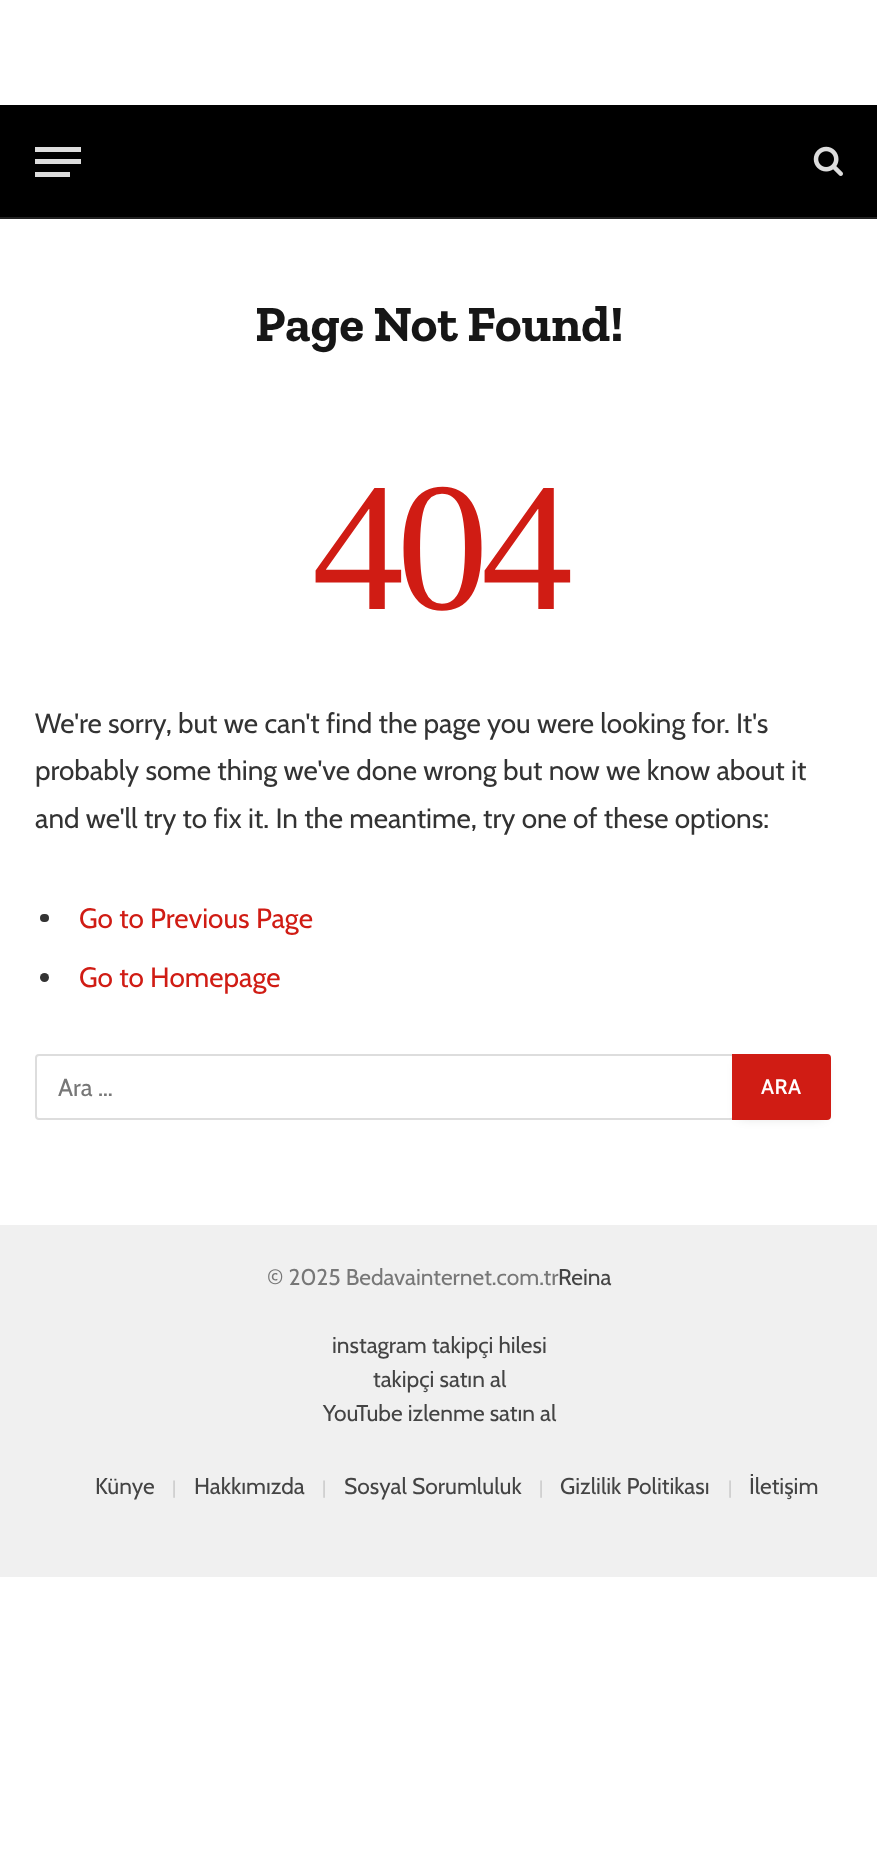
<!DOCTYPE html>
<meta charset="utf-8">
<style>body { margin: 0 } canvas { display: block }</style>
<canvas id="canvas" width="877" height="1871"></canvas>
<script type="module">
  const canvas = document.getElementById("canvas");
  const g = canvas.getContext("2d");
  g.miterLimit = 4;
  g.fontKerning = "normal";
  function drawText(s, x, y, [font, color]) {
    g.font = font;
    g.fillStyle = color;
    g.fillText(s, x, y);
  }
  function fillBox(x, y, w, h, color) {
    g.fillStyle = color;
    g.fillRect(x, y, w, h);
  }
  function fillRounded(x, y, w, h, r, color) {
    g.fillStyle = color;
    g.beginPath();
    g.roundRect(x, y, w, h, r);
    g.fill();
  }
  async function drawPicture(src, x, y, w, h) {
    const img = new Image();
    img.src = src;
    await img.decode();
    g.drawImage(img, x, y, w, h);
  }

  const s1 = ["bold 50.75px Zilla Slab", "#161616"];
  const s2 = ["184px Liberation Serif", "#D01C14"];
  const s3 = ["27.9px Cabin", "#333333"];
  const s4 = ["27.9px Cabin", "#D01C14"];
  const s5 = ["24.5px Cabin", "#777777"];
  const s6 = ["600 21px Cabin", "#FFFFFF"];
  const s7 = ["22.75px Cabin", "#777777"];
  const s8 = ["22.75px Cabin", "#444444"];
  const s9 = ["18px Cabin", "#CCCCCC"];

  fillBox(0, 0, 877, 1871, "#FFFFFF");
  fillBox(0, 105, 877, 112, "#000000");
  fillBox(0, 217, 877, 2, "#222222");
  fillBox(35, 172, 35, 5, "#DDDDDD");
  fillBox(35, 147, 46, 5, "#DDDDDD");
  fillBox(35, 159, 46, 5, "#DDDDDD");
  await drawPicture("pic1.png", 813, 146, 30, 30);
  drawText("Page Not Found!", 255, 341, s1);
  g.letterSpacing = "-7.5px";
  drawText("404", 312, 609, s2);
  g.letterSpacing = "0px";
  drawText("We're sorry, but we can't find the page you were looking for. It's", 35, 733, s3);
  drawText("probably some thing we've done wrong but now we know about it", 35, 780, s3);
  drawText("and we'll try to fix it. In the meantime, try one of these options:", 35, 828, s3);
  fillRounded(40, 914, 9, 8, 4, "#333333");
  drawText("Go to Previous Page", 79, 928, s4);
  g.fillStyle = "#333333";
  g.beginPath();
  g.arc(44.5, 977.5, 4.5, 0, Math.PI * 2);
  g.fill();
  drawText("Go to Homepage", 79, 987, s4);
  g.beginPath();
  g.roundRect(36, 1055, 698, 64, 3);
  g.strokeStyle = "#DDDDDD";
  g.lineWidth = 2;
  g.stroke();
  drawText("Ara …", 58, 1096, s5);
  g.fillStyle = "rgba(0, 0, 0, 0.16)";
  g.filter = "blur(6px)";
  g.beginPath();
  g.rect(739, 1064, 85, 53);
  g.fill();
  g.filter = "none";
  g.fillStyle = "#D01C14";
  g.beginPath();
  g.roundRect(732, 1054, 99, 66, [0, 4, 4, 0]);
  g.fill();
  g.letterSpacing = "0.5px";
  drawText("ARA", 761, 1094, s6);
  fillBox(0, 1225, 877, 352, "#F0F0F0");
  g.letterSpacing = "0px";
  drawText("© 2025 Bedavainternet.com.tr", 267, 1285, s7);
  drawText("Reina", 558, 1285, s8);
  drawText("instagram takipçi hilesi", 332, 1353, s8);
  drawText("takipçi satın al", 373, 1387, s8);
  drawText("YouTube izlenme satın al", 323, 1421, s8);
  drawText("Künye", 95, 1494, s8);
  drawText("|", 172, 1494, s9);
  drawText("Hakkımızda", 194, 1494, s8);
  drawText("|", 322, 1494, s9);
  drawText("Sosyal Sorumluluk", 344, 1494, s8);
  drawText("|", 539, 1494, s9);
  drawText("Gizlilik Politikası", 560, 1494, s8);
  drawText("|", 728, 1494, s9);
  drawText("İletişim", 749, 1494, s8);
</script>
